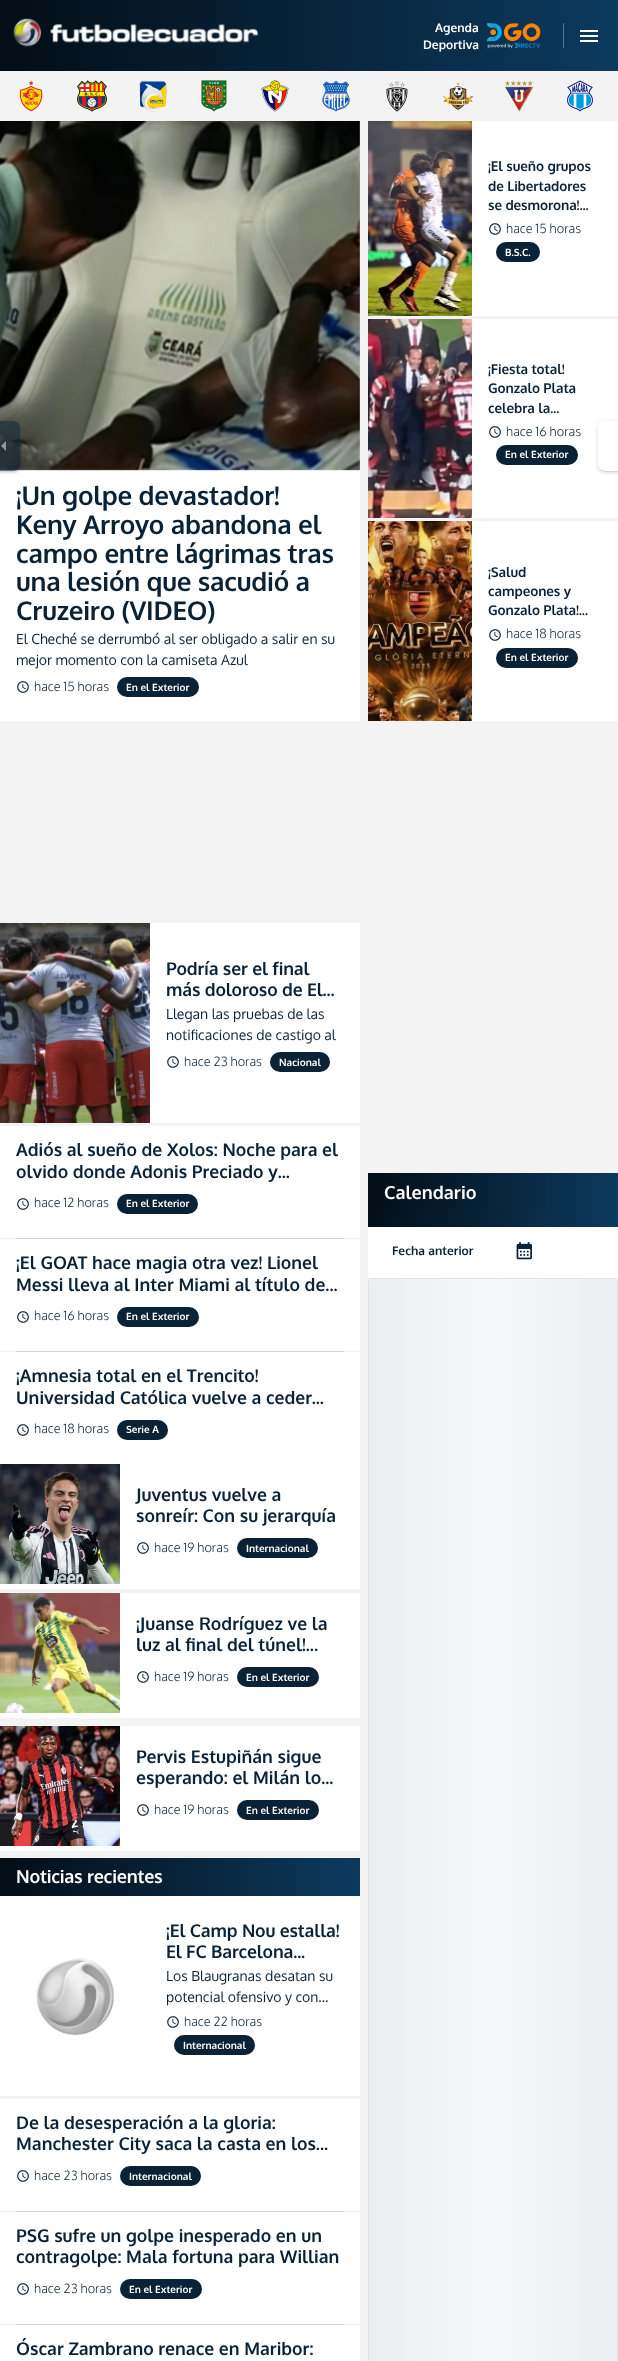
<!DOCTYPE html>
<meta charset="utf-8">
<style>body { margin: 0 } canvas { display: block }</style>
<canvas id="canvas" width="618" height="2361"></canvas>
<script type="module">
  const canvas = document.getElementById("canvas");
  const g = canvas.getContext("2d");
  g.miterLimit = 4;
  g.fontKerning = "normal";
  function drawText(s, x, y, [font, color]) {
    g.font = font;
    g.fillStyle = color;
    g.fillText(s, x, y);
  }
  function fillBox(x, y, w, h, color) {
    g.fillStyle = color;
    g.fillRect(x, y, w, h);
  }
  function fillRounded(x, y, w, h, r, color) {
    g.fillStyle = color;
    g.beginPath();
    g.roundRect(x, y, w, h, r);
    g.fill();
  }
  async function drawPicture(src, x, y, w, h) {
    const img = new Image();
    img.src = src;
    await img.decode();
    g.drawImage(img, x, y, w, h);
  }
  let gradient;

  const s1 = ["bold 12px Oxygen", "#FFFFFF"];
  const s2 = ["bold 26px Oxygen", "#0A2235"];
  const s3 = ["14px Oxygen", "#0A2235"];
  const s4 = ["300 12.75px Oxygen", "#0A2235"];
  const s5 = ["bold 10px Oxygen", "#FFFFFF"];
  const s6 = ["bold 13.5px Oxygen", "#0A2235"];
  const s7 = ["bold 17.6px Oxygen", "#0A2235"];
  const s8 = ["bold 18px Oxygen", "#FFFFFF"];
  const s9 = ["bold 12px Oxygen", "#0A2235"];

  fillBox(0, 0, 618, 2361, "#F3F3F3");
  gradient = g.createLinearGradient(0, 36, 618, 35);
  gradient.addColorStop(0.01, "#030E16");
  gradient.addColorStop(1, "#0C3A5F");
  g.fillStyle = gradient;
  g.fillRect(0, 0, 618, 71);
  await drawPicture("pic1.png", 13, 18, 245, 29);
  await drawPicture("pic2.png", 487, 23, 54, 26);
  drawText("Agenda", 435, 32, s1);
  drawText("Deportiva", 423, 49, s1);
  fillBox(563, 23, 1, 25, "#50728D");
  await drawPicture("pic3.png", 580, 30, 18, 12);
  await drawPicture("pic4.png", 19, 80, 24, 32);
  await drawPicture("pic5.png", 77, 80, 30, 32);
  await drawPicture("pic6.png", 139, 80, 28, 32);
  await drawPicture("pic7.png", 201, 80, 26, 32);
  await drawPicture("pic8.png", 261, 80, 28, 32);
  await drawPicture("pic9.png", 322, 80, 28, 32);
  await drawPicture("pic10.png", 386, 81, 22, 31);
  await drawPicture("pic11.png", 442, 82, 32, 28);
  await drawPicture("pic12.png", 504, 80, 30, 32);
  await drawPicture("pic13.png", 567, 80, 26, 32);
  fillBox(0, 121, 360, 600, "#FFFFFF");
  await drawPicture("pic14.png", 0, 121, 360, 350);
  fillRounded(-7, 421, 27, 50, 7, "rgba(10, 34, 53, 0.5)");
  g.save();
  g.beginPath();
  g.moveTo(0, 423);
  g.lineTo(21, 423);
  g.lineTo(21, 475);
  g.lineTo(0, 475);
  g.closePath();
  g.moveTo(-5, 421);
  g.lineTo(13, 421);
  g.bezierCurveTo(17, 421, 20, 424, 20, 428);
  g.lineTo(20, 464);
  g.bezierCurveTo(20, 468, 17, 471, 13, 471);
  g.lineTo(-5, 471);
  g.bezierCurveTo(-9, 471, -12, 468, -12, 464);
  g.lineTo(-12, 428);
  g.bezierCurveTo(-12, 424, -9, 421, -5, 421);
  g.closePath();
  g.clip("evenodd");
  g.fillStyle = "rgba(0, 0, 0, 0.06)";
  g.filter = "blur(0.5px)";
  g.beginPath();
  g.roundRect(-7, 426, 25, 46, 5);
  g.fill();
  g.filter = "none";
  g.restore();
  g.save();
  g.beginPath();
  g.moveTo(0, 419);
  g.lineTo(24, 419);
  g.lineTo(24, 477);
  g.lineTo(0, 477);
  g.closePath();
  g.moveTo(-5, 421);
  g.lineTo(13, 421);
  g.bezierCurveTo(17, 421, 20, 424, 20, 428);
  g.lineTo(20, 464);
  g.bezierCurveTo(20, 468, 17, 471, 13, 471);
  g.lineTo(-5, 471);
  g.bezierCurveTo(-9, 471, -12, 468, -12, 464);
  g.lineTo(-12, 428);
  g.bezierCurveTo(-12, 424, -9, 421, -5, 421);
  g.closePath();
  g.clip("evenodd");
  g.fillStyle = "rgba(0, 0, 0, 0.07)";
  g.filter = "blur(1px)";
  g.beginPath();
  g.roundRect(-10, 423, 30, 50, 7);
  g.fill();
  g.filter = "none";
  g.restore();
  g.save();
  g.beginPath();
  g.moveTo(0, 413);
  g.lineTo(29, 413);
  g.lineTo(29, 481);
  g.lineTo(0, 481);
  g.closePath();
  g.moveTo(-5, 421);
  g.lineTo(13, 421);
  g.bezierCurveTo(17, 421, 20, 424, 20, 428);
  g.lineTo(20, 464);
  g.bezierCurveTo(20, 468, 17, 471, 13, 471);
  g.lineTo(-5, 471);
  g.bezierCurveTo(-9, 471, -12, 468, -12, 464);
  g.lineTo(-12, 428);
  g.bezierCurveTo(-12, 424, -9, 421, -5, 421);
  g.closePath();
  g.clip("evenodd");
  g.fillStyle = "rgba(0, 0, 0, 0.1)";
  g.filter = "blur(2.5px)";
  g.beginPath();
  g.roundRect(-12, 422, 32, 50, 7);
  g.fill();
  g.filter = "none";
  g.restore();
  fillBox(0, 468, 17, 3, "rgba(0, 0, 0, 0.07)");
  g.fillStyle = "rgba(255, 255, 255, 0.5)";
  g.beginPath();
  g.moveTo(6, 441);
  g.lineTo(6, 451);
  g.lineTo(1, 446);
  g.closePath();
  g.fill();
  g.letterSpacing = "-0.25px";
  drawText("¡Un golpe devastador!", 16, 505, s2);
  drawText("Keny Arroyo abandona el", 16, 534, s2);
  drawText("campo entre lágrimas tras", 16, 563, s2);
  drawText("una lesión que sacudió a", 16, 591, s2);
  drawText("Cruzeiro (VIDEO)", 16, 620, s2);
  g.letterSpacing = "0px";
  drawText("El Cheché se derrumbó al ser obligado a salir en su", 16, 644, s3);
  drawText("mejor momento con la camiseta Azul", 16, 665, s3);
  await drawPicture("pic15.png", 17, 681, 12, 12);
  drawText("hace 15 horas", 34, 691, s4);
  fillRounded(117, 677, 82, 20, 10, "#0A2235");
  drawText("En el Exterior", 126, 691, s5);
  fillBox(472, 121, 146, 195, "#FFFFFF");
  await drawPicture("pic16.png", 368, 121, 104, 195);
  g.letterSpacing = "-0.1px";
  drawText("¡El sueño grupos", 488, 171, s6);
  drawText("de Libertadores", 488, 191, s6);
  drawText("se desmorona!...", 488, 210, s6);
  await drawPicture("pic15.png", 489, 223, 12, 12);
  g.letterSpacing = "0px";
  drawText("hace 15 horas", 506, 233, s4);
  fillRounded(496, 242, 44, 20, 10, "#0A2235");
  drawText("B.S.C.", 505, 256, s5);
  fillBox(472, 319, 146, 199, "#FFFFFF");
  await drawPicture("pic17.png", 368, 319, 104, 199);
  g.letterSpacing = "-0.1px";
  drawText("¡Fiesta total!", 488, 374, s6);
  drawText("Gonzalo Plata", 488, 393, s6);
  drawText("celebra la...", 488, 413, s6);
  await drawPicture("pic15.png", 489, 426, 12, 12);
  g.letterSpacing = "0px";
  drawText("hace 16 horas", 506, 436, s4);
  fillRounded(496, 445, 82, 20, 10, "#0A2235");
  drawText("En el Exterior", 505, 458, s5);
  fillBox(472, 521, 146, 200, "#FFFFFF");
  await drawPicture("pic18.png", 368, 521, 104, 200);
  g.letterSpacing = "-0.1px";
  drawText("¡Salud", 488, 577, s6);
  drawText("campeones y", 488, 596, s6);
  drawText("Gonzalo Plata!...", 488, 615, s6);
  await drawPicture("pic15.png", 489, 629, 12, 12);
  g.letterSpacing = "0px";
  drawText("hace 18 horas", 506, 638, s4);
  fillRounded(496, 648, 82, 20, 10, "#0A2235");
  drawText("En el Exterior", 505, 661, s5);
  g.fillStyle = "rgba(128, 128, 128, 0.12)";
  g.filter = "blur(0.5px)";
  g.beginPath();
  g.roundRect(600, 426, 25, 46, 5);
  g.fill();
  g.filter = "none";
  g.fillStyle = "rgba(128, 128, 128, 0.14)";
  g.filter = "blur(1px)";
  g.beginPath();
  g.roundRect(598, 423, 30, 50, 7);
  g.fill();
  g.filter = "none";
  g.fillStyle = "rgba(128, 128, 128, 0.2)";
  g.filter = "blur(2.5px)";
  g.beginPath();
  g.roundRect(598, 422, 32, 50, 7);
  g.fill();
  g.filter = "none";
  fillBox(602, 470, 3, 1, "rgba(128, 128, 128, 0.15)");
  fillRounded(598, 421, 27, 50, 7, "#FFFFFF");
  fillBox(150, 923, 210, 200, "#FFFFFF");
  await drawPicture("pic19.png", 0, 923, 150, 200);
  g.letterSpacing = "-0.15px";
  drawText("Podría ser el final", 166, 975, s7);
  drawText("más doloroso de El...", 166, 996, s7);
  g.letterSpacing = "0px";
  drawText("Llegan las pruebas de las", 166, 1019, s3);
  drawText("notificaciones de castigo al", 166, 1040, s3);
  await drawPicture("pic15.png", 167, 1056, 12, 12);
  drawText("hace 23 horas", 184, 1066, s4);
  fillRounded(270, 1052, 60, 20, 10, "#0A2235");
  drawText("Nacional", 279, 1066, s5);
  fillBox(0, 1126, 360, 112, "#FFFFFF");
  drawText("Adiós al sueño de Xolos: Noche para el", 16, 1156, s7);
  drawText("olvido donde Adonis Preciado y...", 16, 1178, s7);
  await drawPicture("pic15.png", 17, 1198, 12, 12);
  drawText("hace 12 horas", 34, 1207, s4);
  fillRounded(117, 1194, 81, 20, 10, "#0A2235");
  drawText("En el Exterior", 126, 1207, s5);
  fillBox(16, 1238, 328, 1, "#CFD8DC");
  fillBox(0, 1239, 360, 112, "#FFFFFF");
  drawText("¡El GOAT hace magia otra vez! Lionel", 16, 1269, s7);
  drawText("Messi lleva al Inter Miami al título de...", 16, 1291, s7);
  await drawPicture("pic15.png", 17, 1311, 12, 12);
  drawText("hace 16 horas", 34, 1320, s4);
  fillRounded(117, 1307, 82, 20, 10, "#0A2235");
  drawText("En el Exterior", 126, 1320, s5);
  fillBox(16, 1351, 328, 1, "#CFD8DC");
  fillBox(0, 1352, 360, 237, "#FFFFFF");
  drawText("¡Amnesia total en el Trencito!", 16, 1382, s7);
  drawText("Universidad Católica vuelve a ceder...", 16, 1404, s7);
  await drawPicture("pic15.png", 17, 1424, 12, 12);
  drawText("hace 18 horas", 34, 1433, s4);
  fillRounded(117, 1420, 51, 20, 10, "#0A2235");
  drawText("Serie A", 126, 1433, s5);
  await drawPicture("pic20.png", 0, 1464, 120, 120);
  drawText("Juventus vuelve a", 136, 1501, s7);
  drawText("sonreír: Con su jerarquía", 136, 1522, s7);
  await drawPicture("pic15.png", 137, 1542, 12, 12);
  drawText("hace 19 horas", 154, 1552, s4);
  fillRounded(237, 1538, 81, 20, 10, "#0A2235");
  drawText("Internacional", 246, 1552, s5);
  fillBox(0, 1593, 360, 125, "#FFFFFF");
  await drawPicture("pic21.png", 0, 1593, 120, 120);
  drawText("¡Juanse Rodríguez ve la", 136, 1630, s7);
  drawText("luz al final del túnel!...", 136, 1651, s7);
  await drawPicture("pic15.png", 137, 1671, 12, 12);
  drawText("hace 19 horas", 154, 1681, s4);
  fillRounded(237, 1667, 82, 20, 10, "#0A2235");
  drawText("En el Exterior", 246, 1681, s5);
  fillBox(0, 1726, 360, 125, "#FFFFFF");
  await drawPicture("pic22.png", 0, 1726, 120, 120);
  drawText("Pervis Estupiñán sigue", 136, 1763, s7);
  drawText("esperando: el Milán lo...", 136, 1784, s7);
  await drawPicture("pic15.png", 137, 1804, 12, 12);
  drawText("hace 19 horas", 154, 1814, s4);
  fillRounded(237, 1800, 82, 20, 10, "#0A2235");
  drawText("En el Exterior", 246, 1814, s5);
  gradient = g.createLinearGradient(0, 1877, 360, 1877);
  gradient.addColorStop(0.01, "#030E16");
  gradient.addColorStop(1, "#0C3A5F");
  g.fillStyle = gradient;
  g.fillRect(0, 1858, 360, 38);
  g.letterSpacing = "-0.25px";
  drawText("Noticias recientes", 16, 1883, s8);
  fillBox(0, 1896, 360, 200, "#FFFFFF");
  await drawPicture("pic23.png", 36, 1957, 79, 78);
  g.letterSpacing = "-0.15px";
  drawText("¡El Camp Nou estalla!", 166, 1937, s7);
  drawText("El FC Barcelona...", 166, 1958, s7);
  g.letterSpacing = "0px";
  drawText("Los Blaugranas desatan su", 166, 1981, s3);
  drawText("potencial ofensivo y con…", 166, 2002, s3);
  await drawPicture("pic15.png", 167, 2016, 12, 12);
  drawText("hace 22 horas", 184, 2026, s4);
  fillRounded(174, 2035, 81, 20, 10, "#0A2235");
  drawText("Internacional", 183, 2049, s5);
  fillBox(0, 2099, 360, 112, "#FFFFFF");
  drawText("De la desesperación a la gloria:", 16, 2129, s7);
  drawText("Manchester City saca la casta en los...", 16, 2150, s7);
  await drawPicture("pic15.png", 17, 2170, 12, 12);
  drawText("hace 23 horas", 34, 2180, s4);
  fillRounded(120, 2166, 81, 20, 10, "#0A2235");
  drawText("Internacional", 129, 2180, s5);
  fillBox(16, 2211, 328, 1, "#CFD8DC");
  fillBox(0, 2212, 360, 112, "#FFFFFF");
  drawText("PSG sufre un golpe inesperado en un", 16, 2242, s7);
  drawText("contragolpe: Mala fortuna para Willian", 16, 2263, s7);
  await drawPicture("pic15.png", 17, 2283, 12, 12);
  drawText("hace 23 horas", 34, 2293, s4);
  fillRounded(120, 2279, 82, 20, 10, "#0A2235");
  drawText("En el Exterior", 129, 2293, s5);
  fillBox(16, 2324, 328, 1, "#CFD8DC");
  fillBox(0, 2325, 360, 36, "#FFFFFF");
  drawText("Óscar Zambrano renace en Maribor:", 16, 2355, s7);
  gradient = g.createLinearGradient(368, 1192, 618, 1192);
  gradient.addColorStop(0.01, "#030E16");
  gradient.addColorStop(1, "#0C3A5F");
  g.fillStyle = gradient;
  g.fillRect(368, 1173, 250, 38);
  drawText("Calendario", 384, 1199, s8);
  fillBox(368, 1227, 250, 55, "#FFFFFF");
  gradient = g.createLinearGradient(360, 1219, 618, 1219);
  gradient.addColorStop(0.01, "#030E16");
  gradient.addColorStop(1, "#0C3A5F");
  g.fillStyle = gradient;
  g.fillRect(368, 1211, 250, 16);
  drawText("Fecha anterior", 392, 1255, s9);
  await drawPicture("pic24.png", 516, 1242, 16, 18);
  fillRounded(368, 1278, 250, 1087, 4, "#ECEFF1");
  g.strokeStyle = "rgba(0, 0, 0, 0.05)";
  g.strokeRect(368.5, 1278.5, 249, 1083);
  gradient = g.createLinearGradient(369, 1878, 617, 1878);
  gradient.addColorStop(0, "rgba(255, 255, 255, 0)");
  gradient.addColorStop(0.5, "rgba(255, 255, 255, 0.5)");
  gradient.addColorStop(1, "rgba(255, 255, 255, 0)");
  g.fillStyle = gradient;
  g.fillRect(403, 1279, 180, 1082);
</script>
